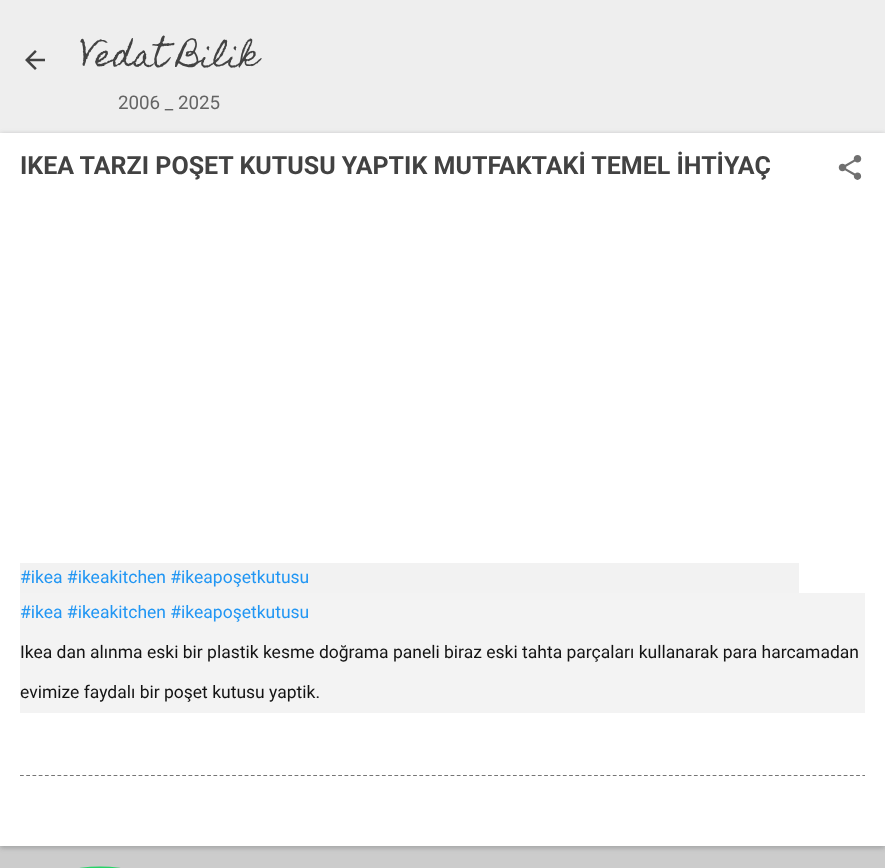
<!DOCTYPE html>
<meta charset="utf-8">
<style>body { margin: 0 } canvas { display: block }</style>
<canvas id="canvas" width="885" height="868"></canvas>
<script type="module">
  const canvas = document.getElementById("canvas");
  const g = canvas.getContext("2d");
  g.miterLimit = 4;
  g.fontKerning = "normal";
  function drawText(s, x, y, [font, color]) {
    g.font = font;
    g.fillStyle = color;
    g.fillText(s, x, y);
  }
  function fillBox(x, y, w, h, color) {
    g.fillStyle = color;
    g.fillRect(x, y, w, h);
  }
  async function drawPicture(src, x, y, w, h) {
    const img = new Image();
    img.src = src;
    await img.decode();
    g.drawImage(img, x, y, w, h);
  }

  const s1 = ["30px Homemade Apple", "#424242"];
  const s2 = ["18.75px Roboto", "#646464"];
  const s3 = ["bold 25px Roboto", "#424242"];
  const s4 = ["17.5px Roboto", "#2196F3"];
  const s5 = ["17.5px Roboto", "#131313"];

  fillBox(0, 0, 885, 868, "#CCCCCC");
  fillBox(0, 0, 885, 133, "#EEEEEE");
  await drawPicture("pic1.png", 25, 50, 20, 20);
  drawText("Vedat Bilik", 80, 66, s1);
  drawText("2006 _ 2025", 118, 109, s2);
  g.fillStyle = "rgba(60, 64, 67, 0.3)";
  g.filter = "blur(2.5px)";
  g.beginPath();
  g.rect(0, 134, 885, 714);
  g.fill();
  g.filter = "none";
  fillBox(0, 133, 885, 713, "#FFFFFF");
  drawText("IKEA TARZI POŞET KUTUSU YAPTIK MUTFAKTAKİ TEMEL İHTİYAÇ", 20, 174, s3);
  await drawPicture("pic2.png", 838, 155, 24, 25);
  fillBox(20, 563, 779, 30, "#F2F2F2");
  drawText("#ikea #ikeakitchen #ikeapoşetkutusu", 20, 583, s4);
  fillBox(20, 593, 845, 120, "#F3F3F3");
  drawText("#ikea #ikeakitchen #ikeapoşetkutusu", 20, 618, s4);
  drawText("Ikea dan alınma eski bir plastik kesme doğrama paneli biraz eski tahta parçaları kullanarak para harcamadan", 20, 658, s5);
  drawText("evimize faydalı bir poşet kutusu yaptik.", 20, 698, s5);
  g.beginPath();
  g.moveTo(20, 775.5);
  g.lineTo(865, 775.5);
  g.strokeStyle = "#757575";
  g.lineWidth = 1.2;
  g.setLineDash([3.75, 2.49]);
  g.stroke();
  g.fillStyle = "#25D366";
  g.beginPath();
  g.ellipse(100, 929, 100, 62.5, 0, 0, Math.PI * 2);
  g.fill();
</script>
